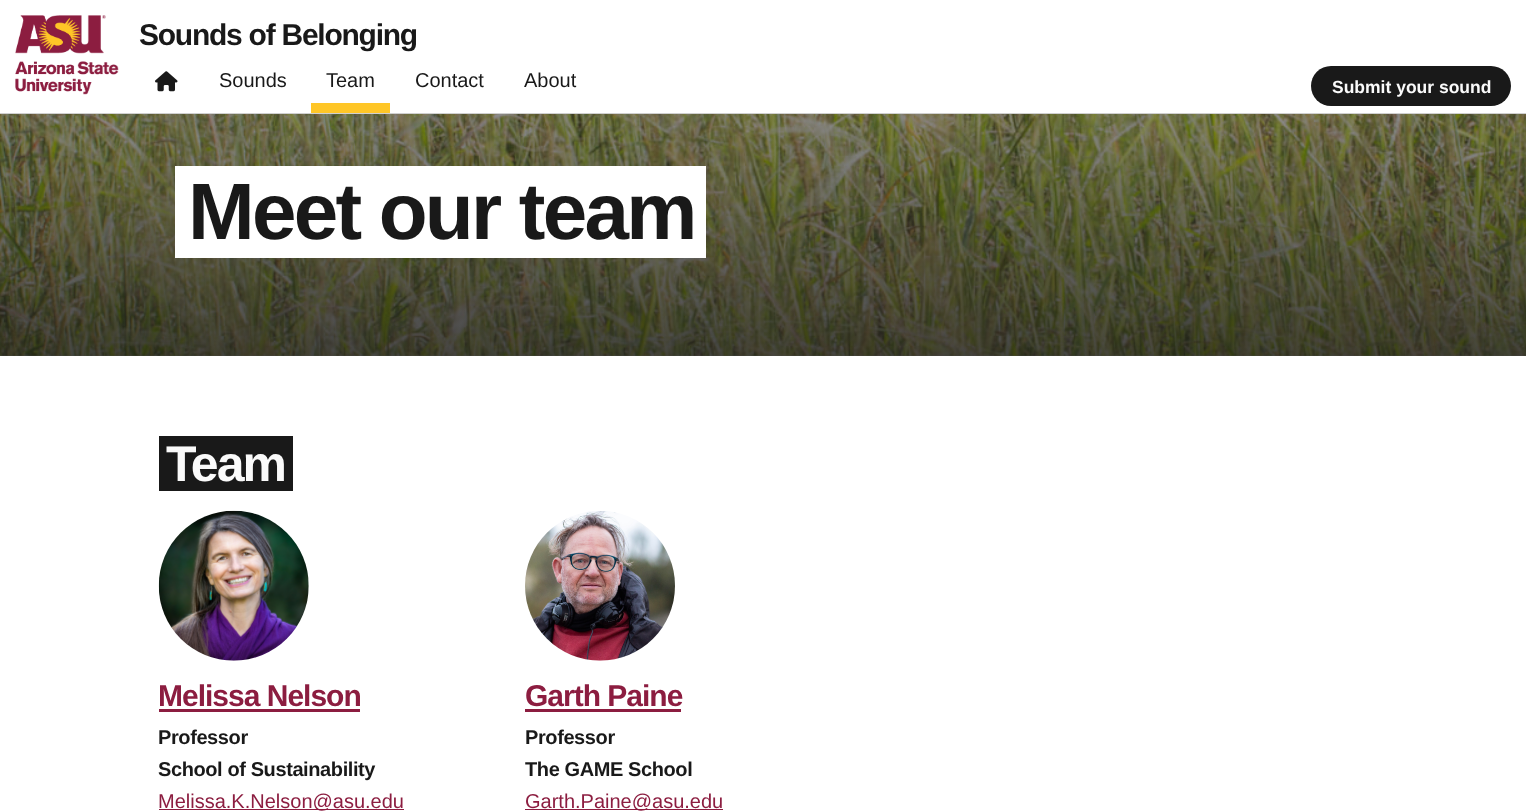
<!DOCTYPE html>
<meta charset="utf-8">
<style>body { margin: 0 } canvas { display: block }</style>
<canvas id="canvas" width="1526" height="811"></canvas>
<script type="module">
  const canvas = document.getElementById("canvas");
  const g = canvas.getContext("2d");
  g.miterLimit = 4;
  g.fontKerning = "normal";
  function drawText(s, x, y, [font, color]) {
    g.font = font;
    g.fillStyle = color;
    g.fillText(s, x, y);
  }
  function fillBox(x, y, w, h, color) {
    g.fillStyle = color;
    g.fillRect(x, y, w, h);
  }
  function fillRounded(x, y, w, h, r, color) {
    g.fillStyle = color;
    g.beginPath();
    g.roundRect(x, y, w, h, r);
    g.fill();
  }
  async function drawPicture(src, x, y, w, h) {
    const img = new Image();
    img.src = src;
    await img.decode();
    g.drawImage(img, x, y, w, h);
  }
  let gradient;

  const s1 = ["bold 30px Liberation Sans", "#191919"];
  const s2 = ["20px Liberation Sans", "#191919"];
  const s3 = ["bold 17.5px Liberation Sans", "#FAFAFA"];
  const s4 = ["bold 80px Liberation Sans", "#191919"];
  const s5 = ["bold 50px Liberation Sans", "#FAFAFA"];
  const s6 = ["bold 30px Liberation Sans", "#8C1D40"];
  const s7 = ["bold 20px Liberation Sans", "#191919"];
  const s8 = ["20px Liberation Sans", "#8C1D40"];

  fillBox(0, 0, 1526, 811, "#FFFFFF");
  fillBox(0, 113, 1526, 1, "#D0D0D0");
  await drawPicture("pic1.png", 15, 15, 104, 80);
  g.letterSpacing = "-1.25px";
  drawText("Sounds of Belonging", 139, 45, s1);
  await drawPicture("pic2.png", 155, 71, 23, 21);
  g.letterSpacing = "0px";
  drawText("Sounds", 219, 87, s2);
  drawText("Team", 326, 87, s2);
  fillBox(311, 103, 79, 10, "#FFC627");
  drawText("Contact", 415, 87, s2);
  drawText("About", 524, 87, s2);
  fillRounded(1311, 66, 200, 40, 20, "#191919");
  drawText("Submit your sound", 1332, 93, s3);
  await drawPicture("pic3.png", 0, 114, 1526, 242);
  gradient = g.createLinearGradient(763, -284, 763, 356);
  gradient.addColorStop(0, "rgba(25, 25, 25, 0)");
  gradient.addColorStop(1, "rgba(25, 25, 25, 0.79)");
  g.fillStyle = gradient;
  g.fillRect(0, 114, 1526, 242);
  fillBox(188, 166, 506, 92, "#FFFFFF");
  g.letterSpacing = "-2.75px";
  drawText("Meet our team", 188, 239, s4);
  g.fillStyle = "#FFFFFF";
  g.beginPath();
  g.moveTo(200, 166);
  g.lineTo(694, 166);
  g.lineTo(694, 258);
  g.lineTo(200, 258);
  g.lineTo(706, 258);
  g.lineTo(706, 166);
  g.closePath();
  g.fill();
  g.beginPath();
  g.moveTo(175, 166);
  g.lineTo(175, 258);
  g.lineTo(681, 258);
  g.lineTo(188, 258);
  g.lineTo(188, 166);
  g.lineTo(681, 166);
  g.closePath();
  g.fill();
  fillBox(159, 436, 134, 55, "#191919");
  g.letterSpacing = "-2px";
  drawText("Team", 166, 481, s5);
  await drawPicture("pic4.png", 158, 510, 151, 151);
  g.letterSpacing = "-1px";
  drawText("Melissa Nelson", 158, 706, s6);
  fillBox(159, 709, 201, 3, "#8C1D40");
  g.letterSpacing = "-0.4px";
  drawText("Professor", 158, 744, s7);
  drawText("School of Sustainability", 158, 776, s7);
  fillBox(159, 809, 245, 1, "#8C1D40");
  g.letterSpacing = "0px";
  drawText("Melissa.K.Nelson@asu.edu", 158, 808, s8);
  await drawPicture("pic5.png", 525, 511, 150, 150);
  g.letterSpacing = "-1px";
  drawText("Garth Paine", 525, 706, s6);
  fillBox(525, 709, 156, 3, "#8C1D40");
  g.letterSpacing = "-0.4px";
  drawText("Professor", 525, 744, s7);
  drawText("The GAME School", 525, 776, s7);
  fillBox(525, 809, 198, 1, "#8C1D40");
  g.letterSpacing = "0px";
  drawText("Garth.Paine@asu.edu", 525, 808, s8);
</script>
